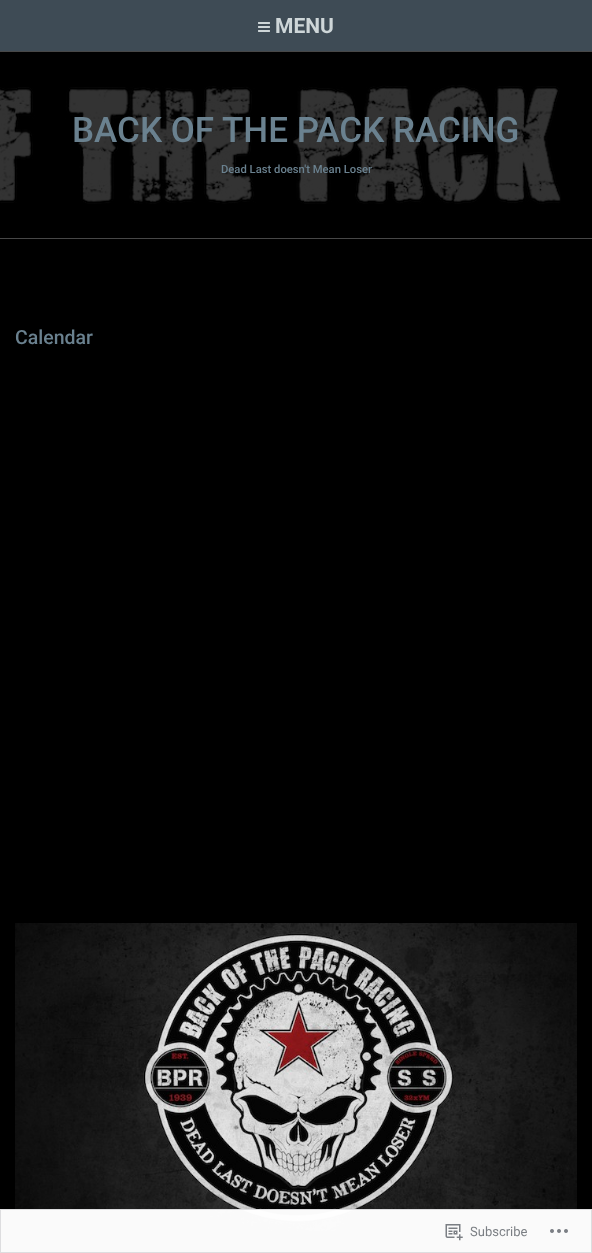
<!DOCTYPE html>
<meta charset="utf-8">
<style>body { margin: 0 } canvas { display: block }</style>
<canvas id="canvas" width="592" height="1253"></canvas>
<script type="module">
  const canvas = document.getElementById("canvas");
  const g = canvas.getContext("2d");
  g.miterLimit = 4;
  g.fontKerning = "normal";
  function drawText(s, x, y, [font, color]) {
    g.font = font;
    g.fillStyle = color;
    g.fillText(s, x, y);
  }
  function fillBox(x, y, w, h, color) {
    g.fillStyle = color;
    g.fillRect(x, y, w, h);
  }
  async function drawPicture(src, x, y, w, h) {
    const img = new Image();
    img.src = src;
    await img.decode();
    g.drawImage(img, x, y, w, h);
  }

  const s1 = ["bold 21px Roboto", "#CED6D8"];
  const s2 = ["500 35px Roboto", "#6A818F"];
  const s3 = ["500 11.25px Roboto", "#6A818F"];
  const s4 = ["500 19.5px Roboto", "#6A818F"];
  const s5 = ["13px Roboto", "#7B7F84"];

  fillBox(0, 0, 592, 1253, "#000000");
  fillBox(0, 51, 592, 1, "#474747");
  fillBox(0, 0, 592, 51, "#3E4B55");
  await drawPicture("pic1.png", 258, 22, 12, 10);
  drawText("MENU", 275, 33, s1);
  await drawPicture("pic2.png", 0, 85, 561, 119);
  drawText("BACK OF THE PACK RACING", 72, 142, s2);
  drawText("Dead Last doesn't Mean Loser", 221, 173, s3);
  fillBox(0, 238, 592, 1, "#474747");
  drawText("Calendar", 15, 344, s4);
  await drawPicture("pic3.png", 15, 923, 562, 308);
  fillBox(0, 1209, 592, 44, "rgba(255, 255, 255, 0.98)");
  g.strokeStyle = "rgba(220, 220, 222, 0.98)";
  g.strokeRect(0.5, 1209.5, 591, 43);
  await drawPicture("pic4.png", 445, 1224, 18, 17);
  drawText("Subscribe", 470, 1236, s5);
  await drawPicture("pic5.png", 550, 1229, 18, 4);
</script>
